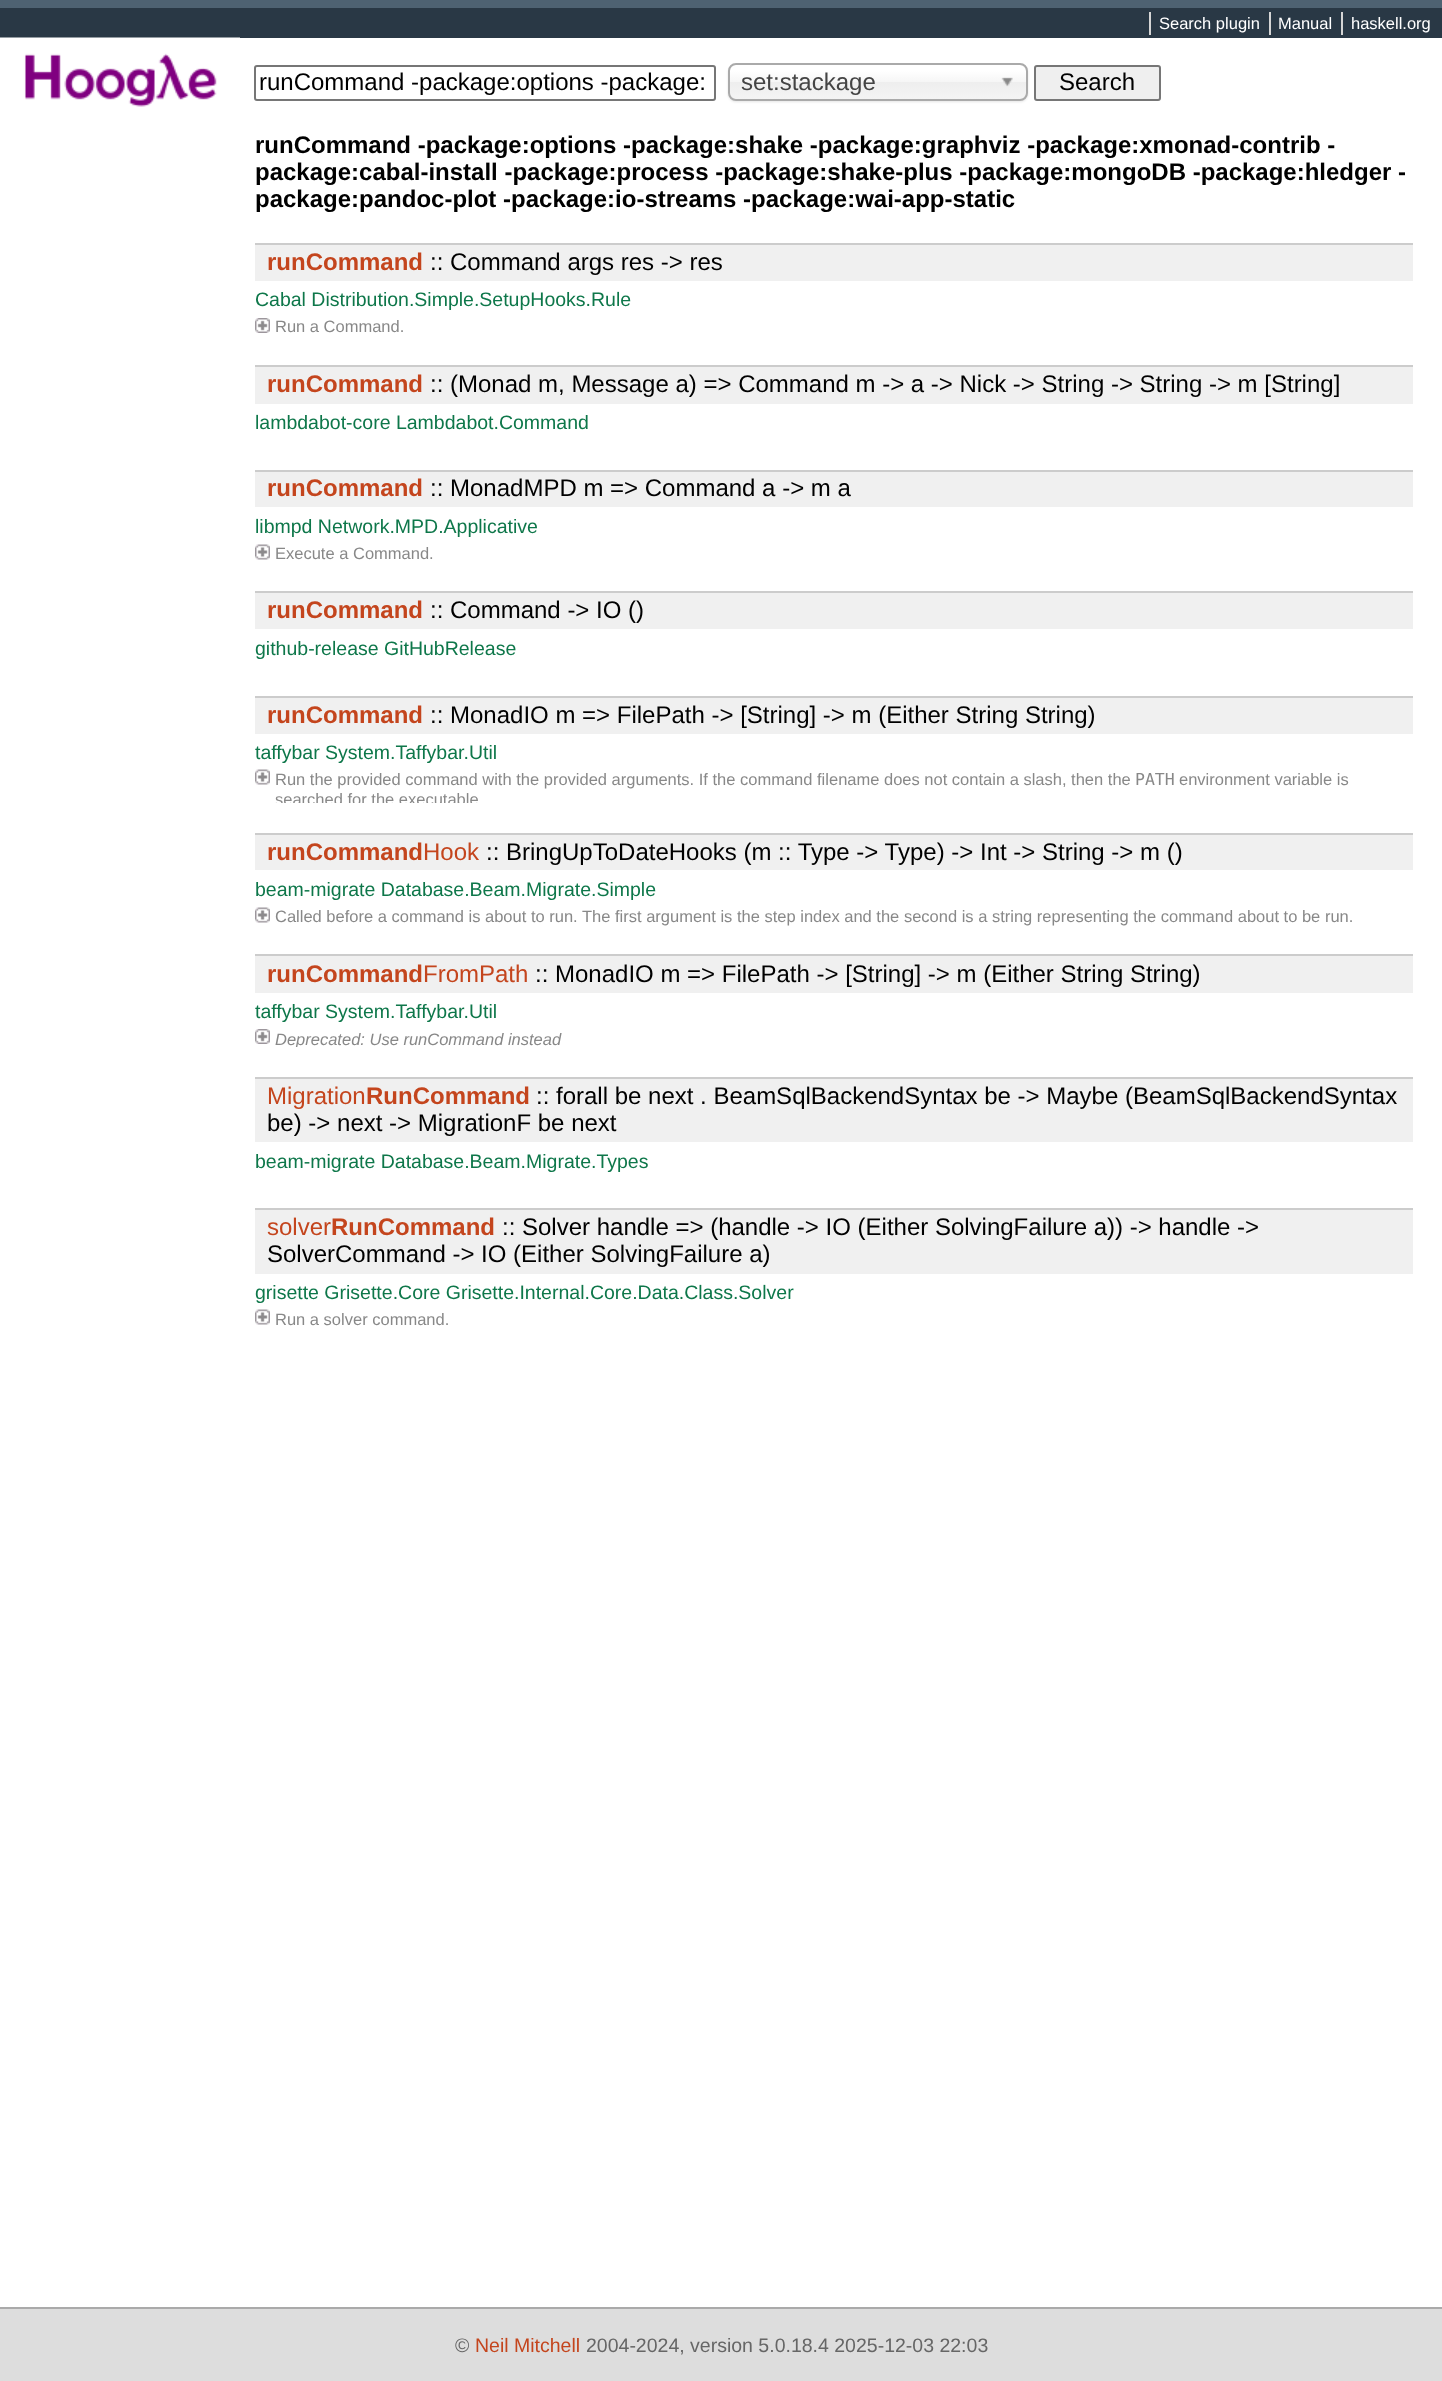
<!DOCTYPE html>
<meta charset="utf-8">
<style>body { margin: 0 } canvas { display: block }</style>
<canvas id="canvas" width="1442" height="2381"></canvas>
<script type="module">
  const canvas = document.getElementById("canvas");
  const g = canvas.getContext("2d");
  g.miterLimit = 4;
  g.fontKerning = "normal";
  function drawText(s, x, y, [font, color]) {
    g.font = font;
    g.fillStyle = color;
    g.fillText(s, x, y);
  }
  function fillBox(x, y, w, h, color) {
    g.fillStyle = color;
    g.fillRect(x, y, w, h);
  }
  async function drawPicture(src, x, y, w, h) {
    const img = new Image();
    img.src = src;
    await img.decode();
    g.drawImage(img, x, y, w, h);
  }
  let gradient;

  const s1 = ["16.5px Liberation Sans", "#FFFFFF"];
  const s2 = ["24px Liberation Sans", "#000000"];
  const s3 = ["24px Liberation Sans", "#444444"];
  const s4 = ["bold 24px Liberation Sans", "#000000"];
  const s5 = ["bold 24px Liberation Sans", "#C4451D"];
  const s6 = ["19.5px Liberation Sans", "#0E774A"];
  const s7 = ["16.5px Liberation Sans", "#888888"];
  const s8 = ["16.5px DejaVu Sans Mono", "#888888"];
  const s9 = ["24px Liberation Sans", "#C4451D"];
  const s10 = ["italic 16.5px Liberation Sans", "#888888"];
  const s11 = ["19.5px Liberation Sans", "#666666"];
  const s12 = ["19.5px Liberation Sans", "#C4451D"];

  fillBox(0, 0, 1442, 2381, "#FFFFFF");
  fillBox(0, 8, 1442, 30, "#293845");
  fillBox(0, 0, 1442, 8, "#4E6272");
  drawText("Search plugin", 1159, 29, s1);
  fillBox(1149, 12, 2, 23, "#D5D5D5");
  drawText("Manual", 1278, 29, s1);
  fillBox(1269, 12, 2, 23, "#D5D5D5");
  drawText("haskell.org", 1351, 29, s1);
  fillBox(1341, 12, 2, 23, "#D5D5D5");
  await drawPicture("pic1.png", 0, 37, 240, 70);
  g.beginPath();
  g.roundRect(255, 66, 460, 34, 2);
  g.strokeStyle = "#767676";
  g.lineWidth = 2;
  g.stroke();
  drawText("runCommand -package:options -package:", 259, 90, s2);
  g.fillStyle = "rgba(0, 0, 0, 0.1)";
  g.filter = "blur(1px)";
  g.beginPath();
  g.roundRect(728, 65, 300, 37, 8);
  g.fill();
  g.filter = "none";
  gradient = g.createLinearGradient(878, 64, 878, 99);
  gradient.addColorStop(0.2, "#FFFFFF");
  gradient.addColorStop(0.5, "#F6F6F6");
  gradient.addColorStop(0.52, "#EEEEEE");
  gradient.addColorStop(1, "#F4F4F4");
  g.fillStyle = gradient;
  g.beginPath();
  g.roundRect(729, 65, 297, 34, 6);
  g.fill();
  g.beginPath();
  g.roundRect(729, 64, 298, 36, 7);
  g.strokeStyle = "#AAAAAA";
  g.stroke();
  drawText("set:stackage", 741, 90, s3);
  await drawPicture("pic2.png", 1001, 77, 12, 10);
  g.fillStyle = "#EFEFEF";
  g.beginPath();
  g.roundRect(1035, 66, 125, 34, 2);
  g.fill();
  g.strokeStyle = "#767676";
  g.stroke();
  drawText("Search", 1059, 90, s2);
  drawText("runCommand -package:options -package:shake -package:graphviz -package:xmonad-contrib -", 255, 153, s4);
  drawText("package:cabal-install -package:process -package:shake-plus -package:mongoDB -package:hledger -", 255, 180, s4);
  drawText("package:pandoc-plot -package:io-streams -package:wai-app-static", 255, 207, s4);
  fillBox(255, 245, 1158, 36, "#F0F0F0");
  fillBox(255, 243, 1158, 2, "#CCCCCC");
  drawText("runCommand", 267, 270, s5);
  drawText(":: Command args res -> res", 430, 270, s2);
  drawText("Cabal Distribution.Simple.SetupHooks.Rule", 255, 306, s6);
  await drawPicture("pic3.png", 255, 318, 15, 15);
  drawText("Run a Command.", 275, 332, s7);
  fillBox(255, 367, 1158, 37, "#F0F0F0");
  fillBox(255, 365, 1158, 2, "#CCCCCC");
  drawText("runCommand", 267, 392, s5);
  drawText(":: (Monad m, Message a) => Command m -> a -> Nick -> String -> String -> m [String]", 430, 392, s2);
  drawText("lambdabot-core Lambdabot.Command", 255, 429, s6);
  fillBox(255, 472, 1158, 35, "#F0F0F0");
  fillBox(255, 470, 1158, 2, "#CCCCCC");
  drawText("runCommand", 267, 496, s5);
  drawText(":: MonadMPD m => Command a -> m a", 430, 496, s2);
  drawText("libmpd Network.MPD.Applicative", 255, 533, s6);
  await drawPicture("pic4.png", 255, 544, 15, 16);
  drawText("Execute a Command.", 275, 559, s7);
  fillBox(255, 593, 1158, 36, "#F0F0F0");
  fillBox(255, 591, 1158, 2, "#CCCCCC");
  drawText("runCommand", 267, 618, s5);
  drawText(":: Command -> IO ()", 430, 618, s2);
  drawText("github-release GitHubRelease", 255, 655, s6);
  fillBox(255, 698, 1158, 36, "#F0F0F0");
  fillBox(255, 696, 1158, 2, "#CCCCCC");
  drawText("runCommand", 267, 723, s5);
  drawText(":: MonadIO m => FilePath -> [String] -> m (Either String String)", 430, 723, s2);
  drawText("taffybar System.Taffybar.Util", 255, 759, s6);
  await drawPicture("pic4.png", 255, 769, 15, 16);
  drawText("Run the provided command with the provided arguments. If the command filename does not contain a slash, then the", 275, 785, s7);
  drawText("PATH", 1135, 785, s8);
  drawText("environment variable is", 1179, 785, s7);
  g.save();
  g.beginPath();
  g.rect(255, 770, 1158, 33);
  g.clip();
  drawText("searched for the executable", 275, 805, s7);
  g.restore();
  fillBox(255, 835, 1158, 35, "#F0F0F0");
  fillBox(255, 833, 1158, 2, "#CCCCCC");
  drawText("runCommand", 267, 860, s5);
  drawText("Hook", 423, 860, s9);
  drawText(":: BringUpToDateHooks (m :: Type -> Type) -> Int -> String -> m ()", 486, 860, s2);
  drawText("beam-migrate Database.Beam.Migrate.Simple", 255, 896, s6);
  await drawPicture("pic4.png", 255, 907, 15, 16);
  drawText("Called before a command is about to run. The first argument is the step index and the second is a string representing the command about to be run.", 275, 922, s7);
  fillBox(255, 956, 1158, 37, "#F0F0F0");
  fillBox(255, 954, 1158, 2, "#CCCCCC");
  drawText("runCommand", 267, 982, s5);
  drawText("FromPath", 423, 982, s9);
  drawText(":: MonadIO m => FilePath -> [String] -> m (Either String String)", 535, 982, s2);
  drawText("taffybar System.Taffybar.Util", 255, 1018, s6);
  await drawPicture("pic3.png", 255, 1029, 15, 15);
  g.save();
  g.beginPath();
  g.rect(255, 1029, 1158, 18);
  g.clip();
  drawText("Deprecated: Use runCommand instead", 275, 1045, s10);
  g.restore();
  fillBox(255, 1079, 1158, 63, "#F0F0F0");
  fillBox(255, 1077, 1158, 2, "#CCCCCC");
  drawText("Migration", 267, 1104, s9);
  drawText("RunCommand", 366, 1104, s5);
  drawText(":: forall be next . BeamSqlBackendSyntax be -> Maybe (BeamSqlBackendSyntax", 536, 1104, s2);
  drawText("be) -> next -> MigrationF be next", 267, 1131, s2);
  drawText("beam-migrate Database.Beam.Migrate.Types", 255, 1168, s6);
  fillBox(255, 1210, 1158, 64, "#F0F0F0");
  fillBox(255, 1208, 1158, 2, "#CCCCCC");
  drawText("solver", 267, 1235, s9);
  drawText("RunCommand", 331, 1235, s5);
  drawText(":: Solver handle => (handle -> IO (Either SolvingFailure a)) -> handle ->", 502, 1235, s2);
  drawText("SolverCommand -> IO (Either SolvingFailure a)", 267, 1262, s2);
  drawText("grisette Grisette.Core Grisette.Internal.Core.Data.Class.Solver", 255, 1299, s6);
  await drawPicture("pic4.png", 255, 1309, 15, 16);
  drawText("Run a solver command.", 275, 1325, s7);
  fillBox(0, 2309, 1442, 72, "#DDDDDD");
  fillBox(0, 2307, 1442, 2, "#AAAAAA");
  drawText("©", 455, 2352, s11);
  drawText("Neil Mitchell", 475, 2352, s12);
  drawText("2004-2024, version 5.0.18.4 2025-12-03 22:03", 586, 2352, s11);
</script>
